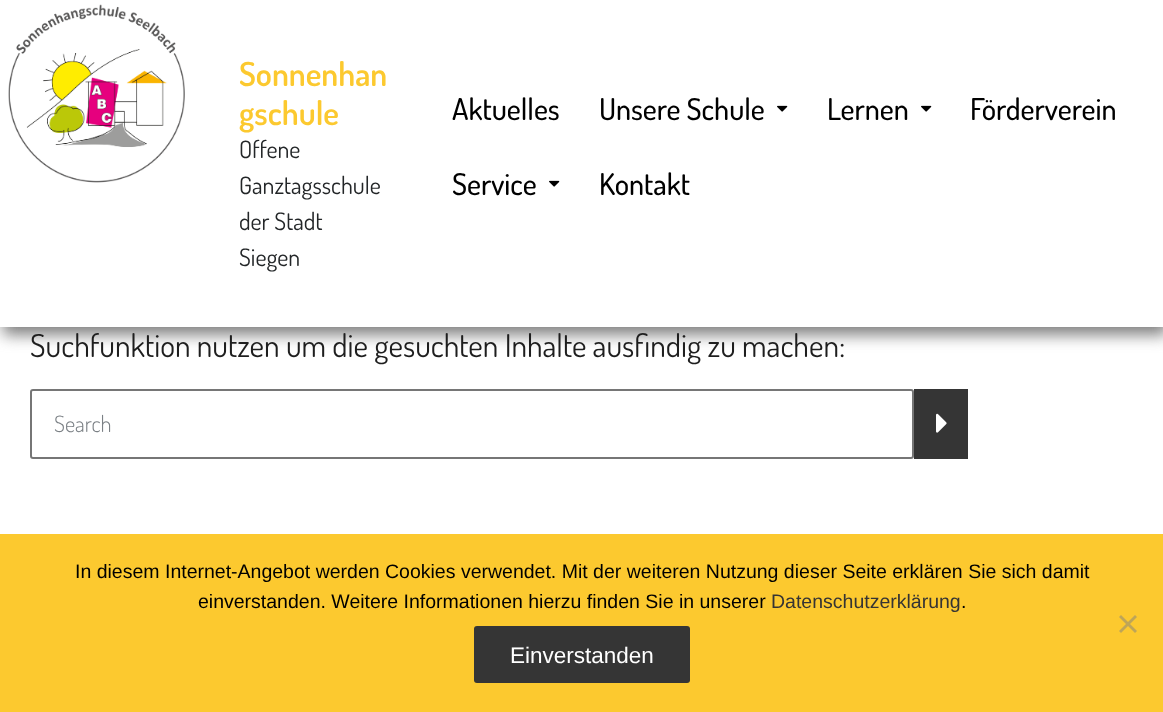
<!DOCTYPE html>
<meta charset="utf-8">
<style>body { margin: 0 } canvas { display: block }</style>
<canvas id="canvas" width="1163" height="712"></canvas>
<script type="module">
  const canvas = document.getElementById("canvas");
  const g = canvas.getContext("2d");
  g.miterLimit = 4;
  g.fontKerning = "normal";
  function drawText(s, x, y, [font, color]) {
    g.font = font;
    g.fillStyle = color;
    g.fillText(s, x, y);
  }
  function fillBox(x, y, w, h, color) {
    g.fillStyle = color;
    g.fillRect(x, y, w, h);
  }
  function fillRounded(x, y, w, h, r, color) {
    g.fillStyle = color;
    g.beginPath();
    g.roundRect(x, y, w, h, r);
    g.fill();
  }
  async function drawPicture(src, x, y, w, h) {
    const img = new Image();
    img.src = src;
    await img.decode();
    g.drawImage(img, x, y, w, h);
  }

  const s1 = ["600 33px Dosis", "#FCC92F"];
  const s2 = ["24px Dosis", "#232628"];
  const s3 = ["500 30px Dosis", "#000000"];
  const s4 = ["31.5px Dosis", "#1E1E1E"];
  const s5 = ["300 22.5px Dosis", "#7B8085"];
  const s6 = ["19.5px Liberation Sans", "#000000"];
  const s7 = ["19.5px Liberation Sans", "#353434"];
  const s8 = ["22.5px Liberation Sans", "#FFFFFF"];

  fillBox(0, 0, 1163, 712, "#FFFFFF");
  g.fillStyle = "#808080";
  g.filter = "blur(7.5px)";
  g.beginPath();
  g.rect(3, 8, 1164, 327);
  g.fill();
  g.filter = "none";
  fillBox(0, 0, 1163, 327, "#FFFFFF");
  await drawPicture("pic1.png", 8, 4, 177, 179);
  drawText("Sonnenhan", 239, 86, s1);
  drawText("gschule", 239, 125, s1);
  drawText("Offene", 239, 158, s2);
  drawText("Ganztagsschule", 239, 194, s2);
  drawText("der Stadt", 239, 230, s2);
  drawText("Siegen", 239, 266, s2);
  drawText("Aktuelles", 452, 120, s3);
  drawText("Unsere Schule", 599, 120, s3);
  await drawPicture("pic2.png", 777, 105, 11, 7);
  drawText("Lernen", 827, 120, s3);
  await drawPicture("pic2.png", 921, 105, 11, 7);
  drawText("Förderverein", 970, 120, s3);
  drawText("Service", 452, 195, s3);
  await drawPicture("pic2.png", 549, 180, 11, 7);
  drawText("Kontakt", 599, 195, s3);
  drawText("Suchfunktion nutzen um die gesuchten Inhalte ausfindig zu machen:", 30, 357, s4);
  g.beginPath();
  g.roundRect(31, 390, 882, 68, 2);
  g.strokeStyle = "#767676";
  g.lineWidth = 2;
  g.stroke();
  drawText("Search", 54, 432, s5);
  fillBox(914, 389, 54, 70, "#353535");
  await drawPicture("pic3.png", 936, 413, 11, 20);
  fillBox(0, 534, 1163, 178, "#FCC92F");
  drawText("In diesem Internet-Angebot werden Cookies verwendet. Mit der weiteren Nutzung dieser Seite erklären Sie sich damit", 75, 578, s6);
  drawText("einverstanden. Weitere Informationen hierzu finden Sie in unserer", 198, 608, s6);
  drawText("Datenschutzerklärung", 771, 608, s7);
  drawText(".", 961, 608, s6);
  g.fillStyle = "#BEA558";
  g.beginPath();
  g.moveTo(1135, 615);
  g.lineTo(1137, 617);
  g.lineTo(1121, 633);
  g.lineTo(1119, 631);
  g.closePath();
  g.fill();
  g.beginPath();
  g.moveTo(1119, 617);
  g.lineTo(1121, 615);
  g.lineTo(1137, 631);
  g.lineTo(1135, 633);
  g.closePath();
  g.fill();
  fillRounded(474, 626, 216, 57, 3, "#353535");
  drawText("Einverstanden", 510, 663, s8);
</script>
